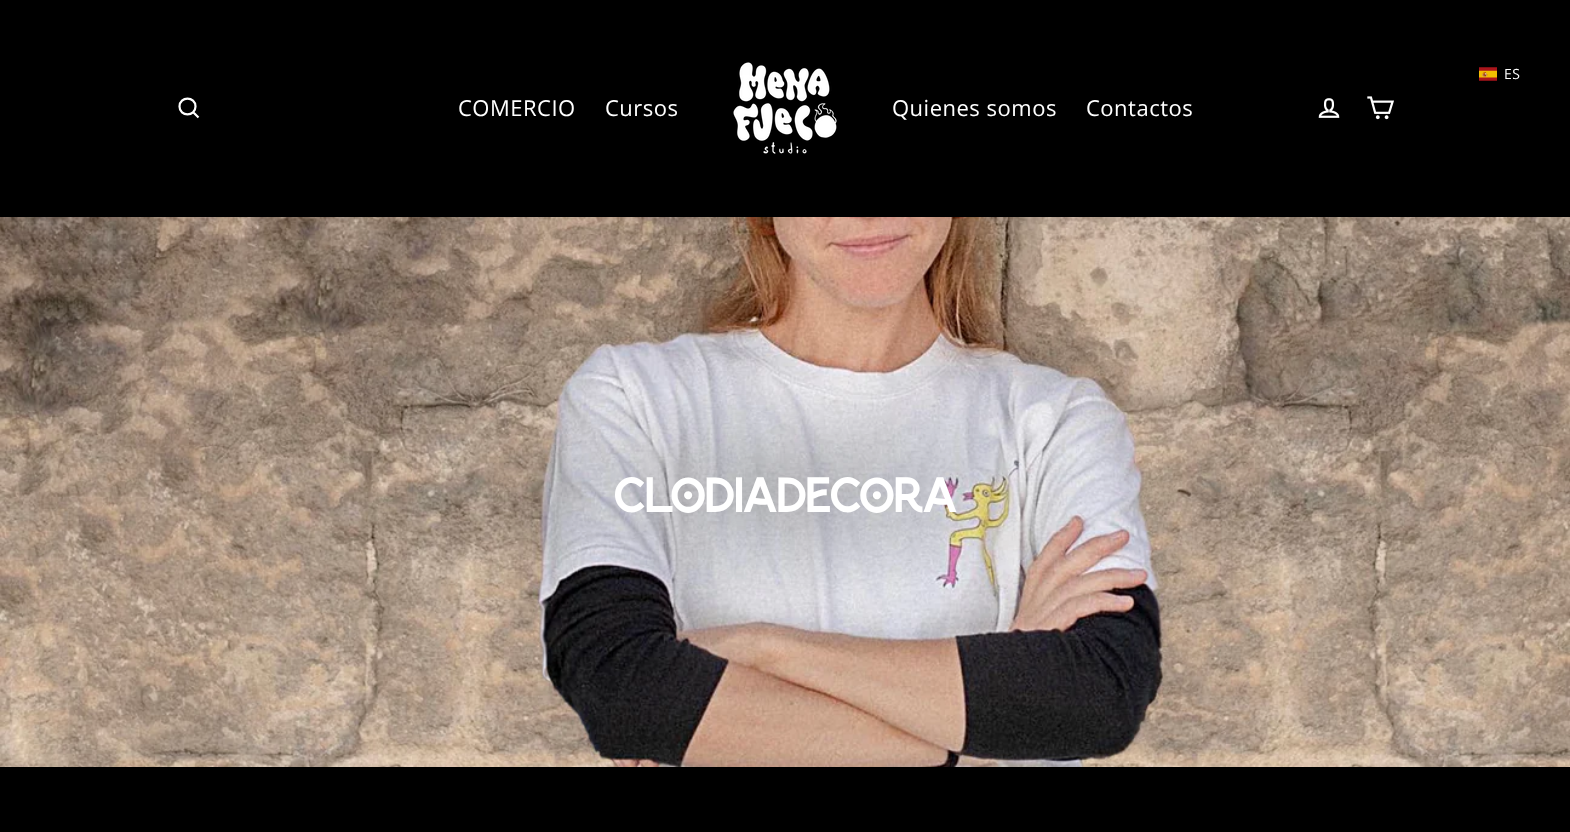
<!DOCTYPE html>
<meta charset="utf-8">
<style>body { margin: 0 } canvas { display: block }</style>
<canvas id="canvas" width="1570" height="832"></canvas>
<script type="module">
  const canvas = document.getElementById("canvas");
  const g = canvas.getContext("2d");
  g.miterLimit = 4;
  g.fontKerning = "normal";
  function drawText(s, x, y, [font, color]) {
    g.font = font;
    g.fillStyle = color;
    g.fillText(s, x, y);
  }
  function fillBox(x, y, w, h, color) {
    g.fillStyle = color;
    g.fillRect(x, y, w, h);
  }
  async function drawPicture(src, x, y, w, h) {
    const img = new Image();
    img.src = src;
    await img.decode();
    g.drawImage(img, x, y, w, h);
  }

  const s1 = ["14px open sans", "#FFFFFF"];
  const s2 = ["22px open sans", "#FFFFFF"];
  const s3 = ["40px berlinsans", "#FFFFFF"];

  fillBox(0, 0, 1570, 832, "#000000");
  await drawPicture("pic1.png", 1479, 67, 18, 14);
  g.letterSpacing = "0.5px";
  drawText("ES", 1504, 79, s1);
  g.beginPath();
  g.moveTo(195.5, 106.5);
  g.bezierCurveTo(195.5, 117, 179.5, 117, 179.5, 106.5);
  g.bezierCurveTo(179.5, 96, 195.5, 96, 195.5, 106.5);
  g.closePath();
  g.moveTo(198.5, 117.5);
  g.lineTo(193.5, 112.5);
  g.strokeStyle = "#FFFFFF";
  g.lineWidth = 2.2;
  g.stroke();
  drawText("COMERCIO", 458, 116, s2);
  drawText("Cursos", 605, 116, s2);
  await drawPicture("pic2.png", 733, 62, 104, 92);
  drawText("Quienes somos", 892, 116, s2);
  drawText("Contactos", 1086, 116, s2);
  await drawPicture("pic3.png", 1318, 98, 22, 20);
  await drawPicture("pic4.png", 1367, 96, 27, 24);
  await drawPicture("pic5.png", 0, 217, 1570, 550);
  g.letterSpacing = "-1px";
  drawText("clodiadecora", 613, 504, s3);
</script>
